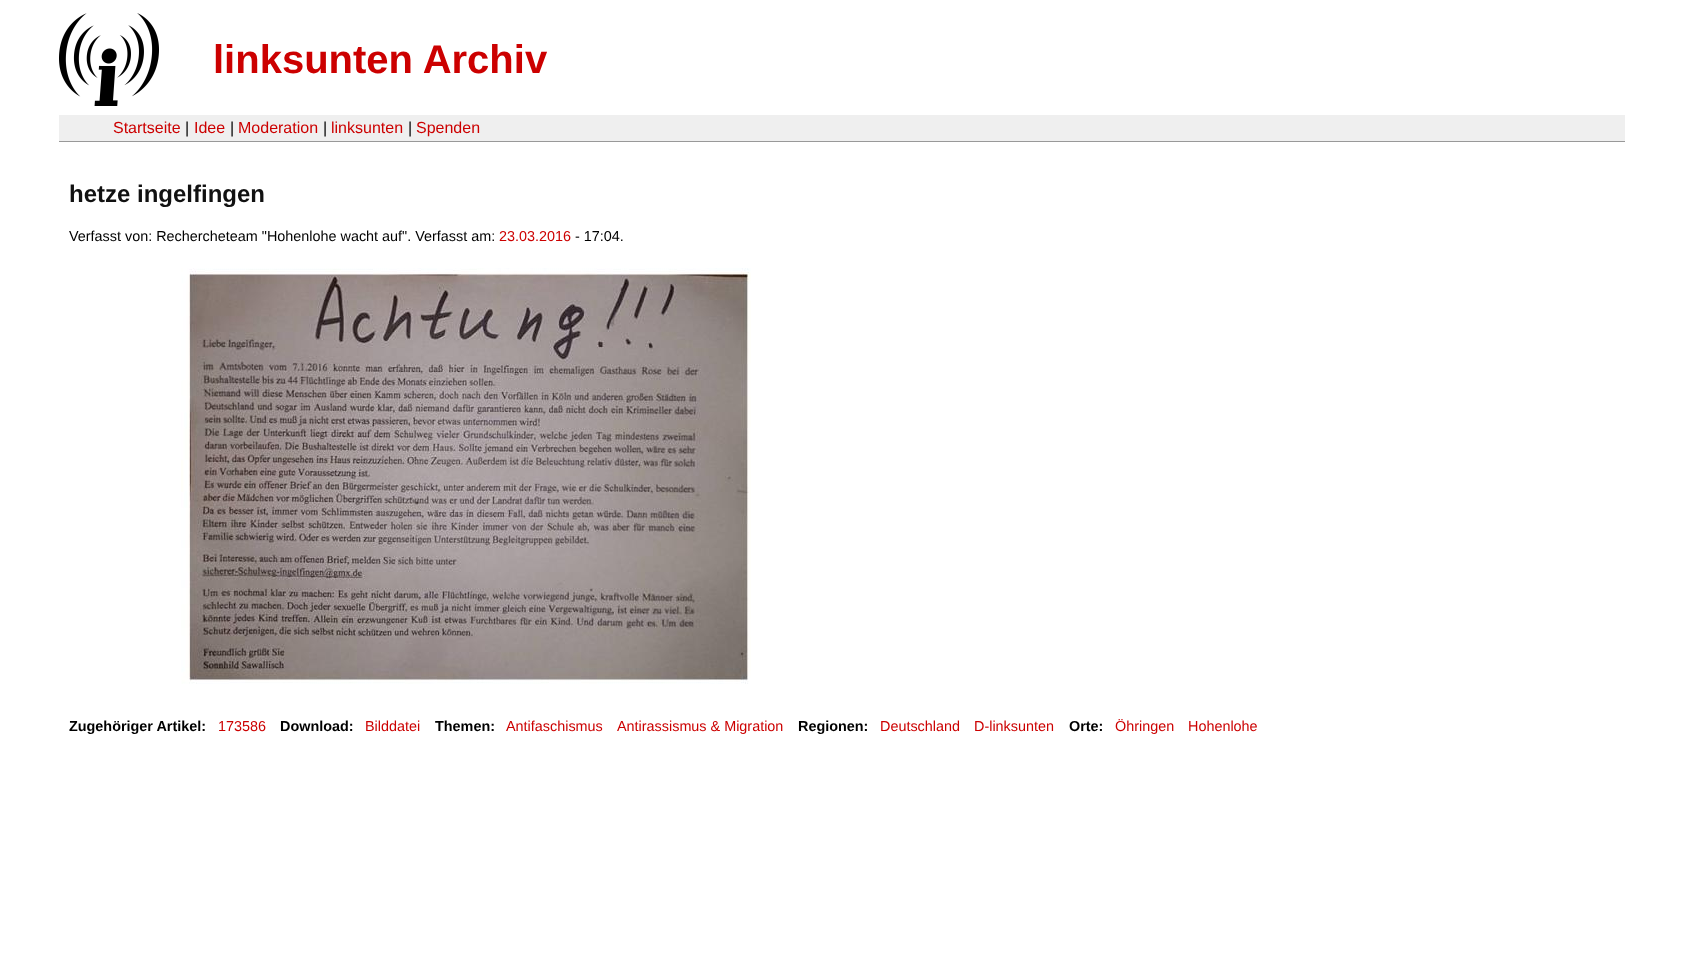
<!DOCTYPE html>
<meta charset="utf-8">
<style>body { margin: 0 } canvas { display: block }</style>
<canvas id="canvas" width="1684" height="969"></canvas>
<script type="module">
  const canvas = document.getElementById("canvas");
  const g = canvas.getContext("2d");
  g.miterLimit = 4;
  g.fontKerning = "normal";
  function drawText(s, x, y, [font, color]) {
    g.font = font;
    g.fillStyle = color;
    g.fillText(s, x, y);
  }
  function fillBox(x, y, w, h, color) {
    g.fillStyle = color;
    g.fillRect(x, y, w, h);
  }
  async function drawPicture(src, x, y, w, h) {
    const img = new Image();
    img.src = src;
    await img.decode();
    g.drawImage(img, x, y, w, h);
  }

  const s1 = ["bold 40px Liberation Sans", "#CC0000"];
  const s2 = ["16px Liberation Sans", "#CC0000"];
  const s3 = ["16px Liberation Sans", "#000000"];
  const s4 = ["bold 24px Liberation Sans", "#111111"];
  const s5 = ["14.4px Liberation Sans", "#000000"];
  const s6 = ["14.4px Liberation Sans", "#CC0000"];
  const s7 = ["bold 14.4px Liberation Sans", "#000000"];

  fillBox(0, 0, 1684, 969, "#FFFFFF");
  await drawPicture("pic1.png", 59, 13, 100, 93);
  drawText("linksunten Archiv", 213, 73, s1);
  fillBox(59, 115, 1566, 26, "#EFEFEF");
  fillBox(59, 141, 1566, 1, "#999999");
  drawText("Startseite", 113, 133, s2);
  drawText("|", 185, 133, s3);
  drawText("Idee", 194, 133, s2);
  drawText("|", 230, 133, s3);
  drawText("Moderation", 238, 133, s2);
  drawText("|", 323, 133, s3);
  drawText("linksunten", 331, 133, s2);
  drawText("|", 408, 133, s3);
  drawText("Spenden", 416, 133, s2);
  drawText("hetze ingelfingen", 69, 202, s4);
  drawText("Verfasst von: Rechercheteam \"Hohenlohe wacht auf\". Verfasst am:", 69, 241, s5);
  drawText("23.03.2016", 499, 241, s6);
  drawText("- 17:04.", 575, 241, s5);
  await drawPicture("pic2.png", 181, 268, 570, 416);
  drawText("Zugehöriger Artikel:", 69, 731, s7);
  drawText("173586", 218, 731, s6);
  drawText("Download:", 280, 731, s7);
  drawText("Bilddatei", 365, 731, s6);
  drawText("Themen:", 435, 731, s7);
  drawText("Antifaschismus", 506, 731, s6);
  drawText("Antirassismus & Migration", 617, 731, s6);
  drawText("Regionen:", 798, 731, s7);
  drawText("Deutschland", 880, 731, s6);
  drawText("D-linksunten", 974, 731, s6);
  drawText("Orte:", 1069, 731, s7);
  drawText("Öhringen", 1115, 731, s6);
  drawText("Hohenlohe", 1188, 731, s6);
</script>
